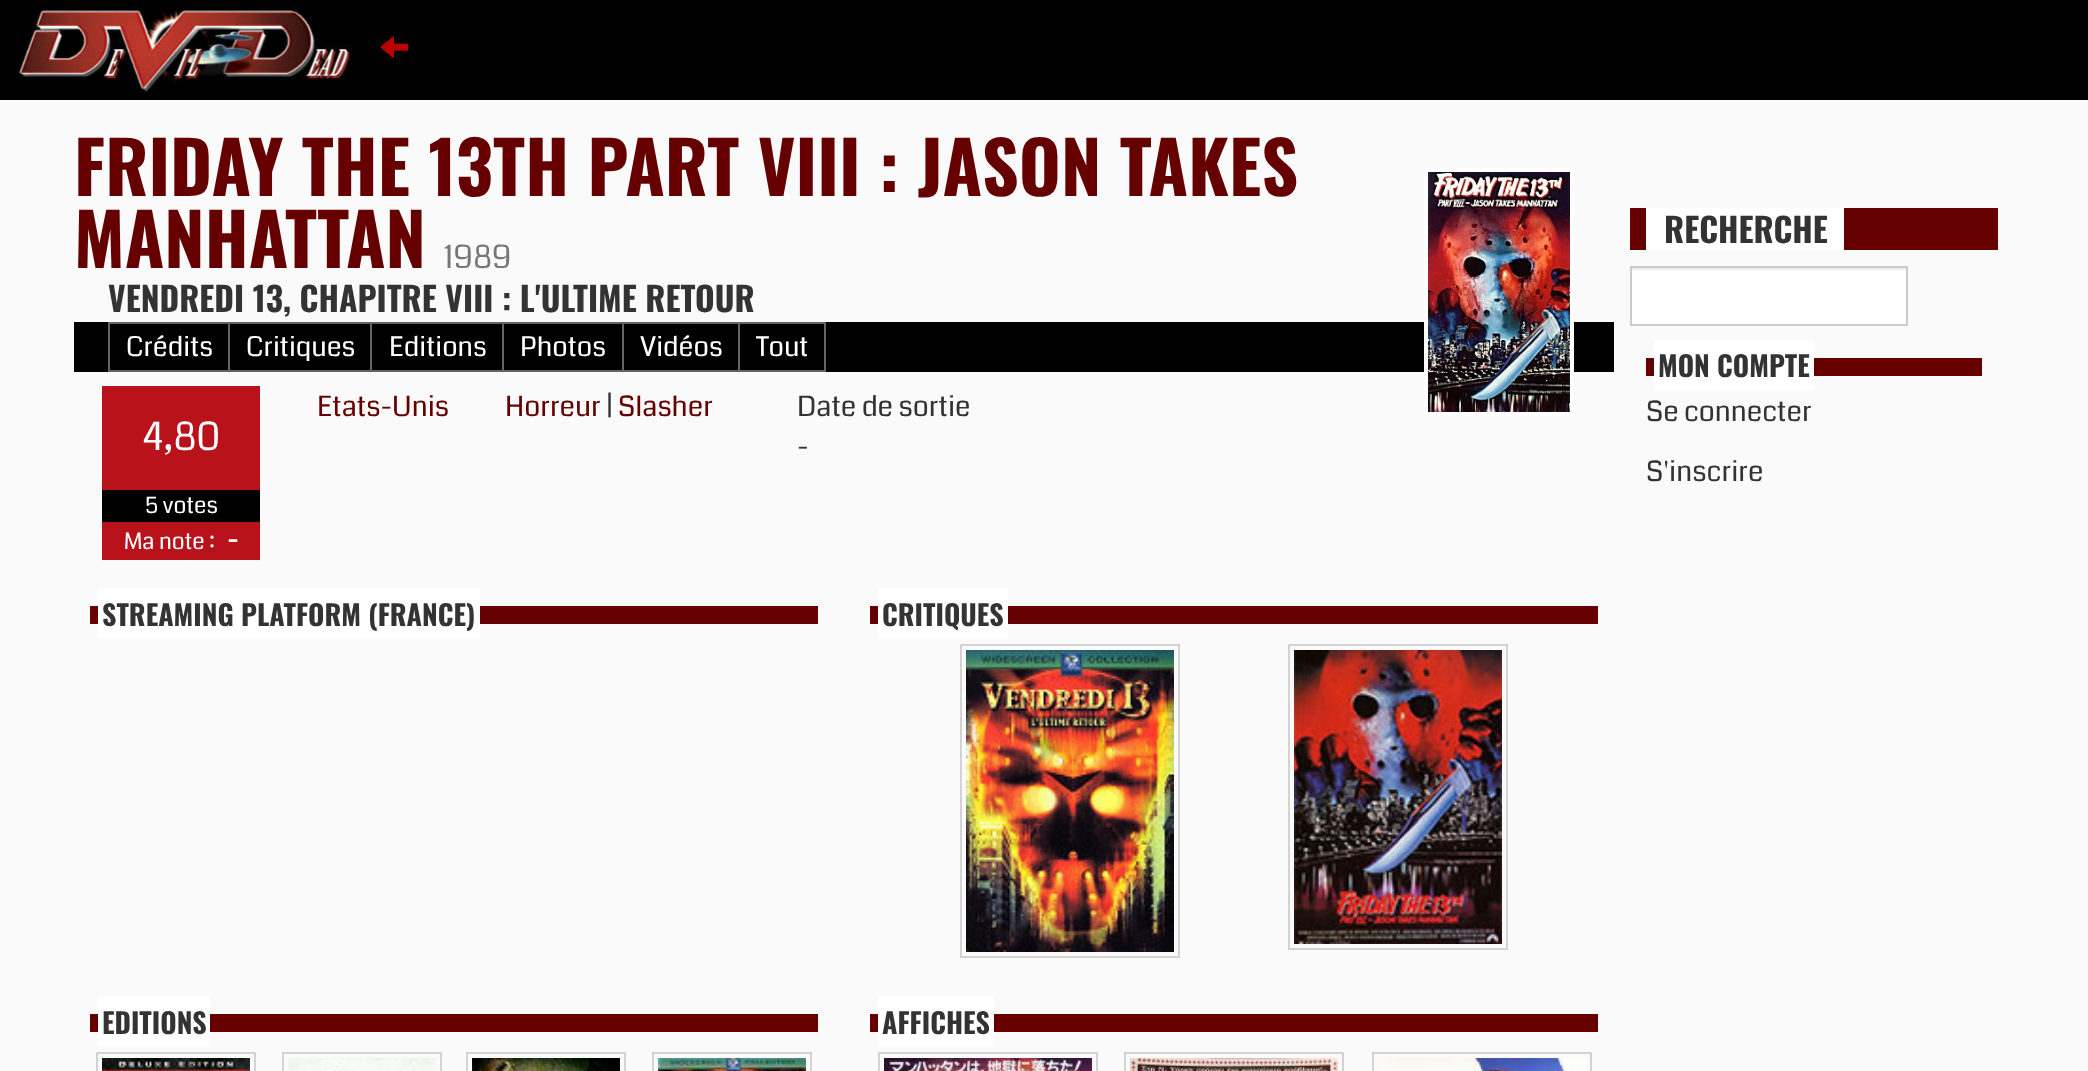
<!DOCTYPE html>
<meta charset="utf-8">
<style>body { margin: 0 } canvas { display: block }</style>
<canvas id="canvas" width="2088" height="1071"></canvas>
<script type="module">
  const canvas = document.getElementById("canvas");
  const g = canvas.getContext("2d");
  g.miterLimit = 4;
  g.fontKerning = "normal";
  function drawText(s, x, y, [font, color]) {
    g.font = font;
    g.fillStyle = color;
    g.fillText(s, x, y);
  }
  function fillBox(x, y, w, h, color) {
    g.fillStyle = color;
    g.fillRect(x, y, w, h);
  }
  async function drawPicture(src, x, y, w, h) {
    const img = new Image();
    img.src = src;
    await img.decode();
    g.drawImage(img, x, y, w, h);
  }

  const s1 = ["bold 72px Oswald", "#660000"];
  const s2 = ["32px Coda", "#777777"];
  const s3 = ["bold 33.6px Oswald", "#333333"];
  const s4 = ["27px Coda", "#FFFFFF"];
  const s5 = ["39px Coda", "#FFFFFF"];
  const s6 = ["22.5px Coda", "#FFFFFF"];
  const s7 = ["bold 27px Coda", "#FFFFFF"];
  const s8 = ["28px Coda", "#660000"];
  const s9 = ["28px Coda", "#333333"];
  const s10 = ["bold 28px Oswald", "#333333"];

  fillBox(0, 0, 2088, 1071, "#FAFAFA");
  fillBox(0, 0, 2088, 100, "#000000");
  await drawPicture("pic1.png", 18, 6, 334, 87);
  await drawPicture("pic2.png", 380, 36, 28, 23);
  drawText("FRIDAY THE 13TH PART VIII : JASON TAKES", 74, 196, s1);
  drawText("MANHATTAN", 74, 268, s1);
  drawText("1989", 444, 268, s2);
  fillBox(74, 322, 1540, 50, "#000000");
  g.strokeStyle = "#FFFFFF";
  g.lineWidth = 4;
  g.strokeRect(1426, 170, 146, 244);
  await drawPicture("pic3.png", 1428, 172, 142, 240);
  drawText("VENDREDI 13, CHAPITRE VIII : L'ULTIME RETOUR", 108, 312, s3);
  g.fillStyle = "#646464";
  g.beginPath();
  g.moveTo(108, 322);
  g.lineTo(228, 322);
  g.lineTo(228, 324);
  g.lineTo(110, 324);
  g.closePath();
  g.fill();
  g.beginPath();
  g.moveTo(228, 372);
  g.lineTo(108, 372);
  g.lineTo(110, 370);
  g.lineTo(228, 370);
  g.closePath();
  g.fill();
  g.fillStyle = "rgba(250, 250, 250, 0.4)";
  g.beginPath();
  g.moveTo(108, 372);
  g.lineTo(108, 322);
  g.lineTo(110, 324);
  g.lineTo(110, 370);
  g.closePath();
  g.fill();
  drawText("Crédits", 126, 356, s4);
  g.fillStyle = "#646464";
  g.beginPath();
  g.moveTo(228, 322);
  g.lineTo(370, 322);
  g.lineTo(370, 324);
  g.lineTo(230, 324);
  g.closePath();
  g.fill();
  g.beginPath();
  g.moveTo(370, 372);
  g.lineTo(228, 372);
  g.lineTo(230, 370);
  g.lineTo(370, 370);
  g.closePath();
  g.fill();
  g.fillStyle = "rgba(250, 250, 250, 0.4)";
  g.beginPath();
  g.moveTo(228, 372);
  g.lineTo(228, 322);
  g.lineTo(230, 324);
  g.lineTo(230, 370);
  g.closePath();
  g.fill();
  drawText("Critiques", 246, 356, s4);
  g.fillStyle = "#646464";
  g.beginPath();
  g.moveTo(370, 322);
  g.lineTo(502, 322);
  g.lineTo(502, 324);
  g.lineTo(372, 324);
  g.closePath();
  g.fill();
  g.beginPath();
  g.moveTo(502, 372);
  g.lineTo(370, 372);
  g.lineTo(372, 370);
  g.lineTo(502, 370);
  g.closePath();
  g.fill();
  g.fillStyle = "rgba(250, 250, 250, 0.4)";
  g.beginPath();
  g.moveTo(370, 372);
  g.lineTo(370, 322);
  g.lineTo(372, 324);
  g.lineTo(372, 370);
  g.closePath();
  g.fill();
  drawText("Editions", 389, 356, s4);
  g.fillStyle = "#646464";
  g.beginPath();
  g.moveTo(502, 322);
  g.lineTo(622, 322);
  g.lineTo(622, 324);
  g.lineTo(504, 324);
  g.closePath();
  g.fill();
  g.beginPath();
  g.moveTo(622, 372);
  g.lineTo(502, 372);
  g.lineTo(504, 370);
  g.lineTo(622, 370);
  g.closePath();
  g.fill();
  g.fillStyle = "rgba(250, 250, 250, 0.4)";
  g.beginPath();
  g.moveTo(502, 372);
  g.lineTo(502, 322);
  g.lineTo(504, 324);
  g.lineTo(504, 370);
  g.closePath();
  g.fill();
  drawText("Photos", 520, 356, s4);
  g.fillStyle = "#646464";
  g.beginPath();
  g.moveTo(622, 322);
  g.lineTo(738, 322);
  g.lineTo(738, 324);
  g.lineTo(624, 324);
  g.closePath();
  g.fill();
  g.beginPath();
  g.moveTo(738, 372);
  g.lineTo(622, 372);
  g.lineTo(624, 370);
  g.lineTo(738, 370);
  g.closePath();
  g.fill();
  g.fillStyle = "rgba(250, 250, 250, 0.4)";
  g.beginPath();
  g.moveTo(622, 372);
  g.lineTo(622, 322);
  g.lineTo(624, 324);
  g.lineTo(624, 370);
  g.closePath();
  g.fill();
  drawText("Vidéos", 640, 356, s4);
  g.strokeStyle = "#646464";
  g.lineWidth = 2;
  g.strokeRect(739, 323, 86, 48);
  drawText("Tout", 756, 356, s4);
  fillBox(102, 386, 158, 104, "#B9121B");
  drawText("4,80", 143, 450, s5);
  fillBox(102, 490, 158, 32, "#000000");
  drawText("5 votes", 145, 513, s6);
  fillBox(102, 522, 158, 38, "#B9121B");
  drawText("Ma note :", 124, 549, s6);
  drawText("-", 227, 549, s7);
  drawText("Etats-Unis", 317, 416, s8);
  drawText("Horreur", 505, 416, s8);
  drawText("|", 606, 416, s9);
  drawText("Slasher", 618, 416, s8);
  drawText("Date de sortie", 797, 416, s9);
  drawText("-", 797, 456, s9);
  fillBox(90, 606, 728, 18, "#660000");
  fillBox(98, 588, 382, 50, "#FFFFFF");
  drawText("STREAMING PLATFORM (FRANCE)", 102, 626, s10);
  fillBox(870, 606, 728, 18, "#660000");
  fillBox(878, 588, 130, 50, "#FFFFFF");
  drawText("CRITIQUES", 882, 626, s10);
  g.strokeStyle = "#D3D3D3";
  g.strokeRect(961, 645, 218, 312);
  await drawPicture("pic4.png", 966, 650, 208, 302);
  g.strokeRect(1289, 645, 218, 304);
  await drawPicture("pic5.png", 1294, 650, 208, 294);
  fillBox(90, 1014, 728, 18, "#660000");
  fillBox(98, 996, 112, 50, "#FFFFFF");
  drawText("EDITIONS", 102, 1034, s10);
  g.strokeRect(97, 1053, 158, 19);
  await drawPicture("pic6.png", 102, 1058, 148, 13);
  g.strokeRect(283, 1053, 158, 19);
  await drawPicture("pic7.png", 288, 1058, 148, 13);
  g.strokeRect(467, 1053, 158, 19);
  await drawPicture("pic8.png", 472, 1058, 148, 13);
  g.strokeRect(653, 1053, 158, 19);
  await drawPicture("pic9.png", 658, 1058, 148, 13);
  fillBox(870, 1014, 728, 18, "#660000");
  fillBox(878, 996, 116, 50, "#FFFFFF");
  drawText("AFFICHES", 882, 1034, s10);
  g.strokeRect(879, 1053, 218, 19);
  await drawPicture("pic10.png", 884, 1058, 208, 13);
  g.strokeRect(1125, 1053, 218, 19);
  await drawPicture("pic11.png", 1130, 1058, 208, 13);
  g.strokeRect(1373, 1053, 218, 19);
  await drawPicture("pic12.png", 1378, 1058, 208, 13);
  fillBox(1630, 208, 368, 42, "#660000");
  fillBox(1646, 208, 198, 42, "#FFFFFF");
  drawText("RECHERCHE", 1664, 243, s3);
  fillBox(1632, 270, 274, 54, "#FFFFFF");
  fillBox(1632, 268, 274, 2, "#ECECEC");
  g.strokeStyle = "#CCCCCC";
  g.strokeRect(1631, 267, 276, 58);
  fillBox(1646, 358, 336, 18, "#660000");
  fillBox(1654, 340, 160, 50, "#FFFFFF");
  drawText("MON COMPTE", 1658, 377, s10);
  drawText("Se connecter", 1646, 421, s9);
  drawText("S'inscrire", 1646, 481, s9);
</script>
